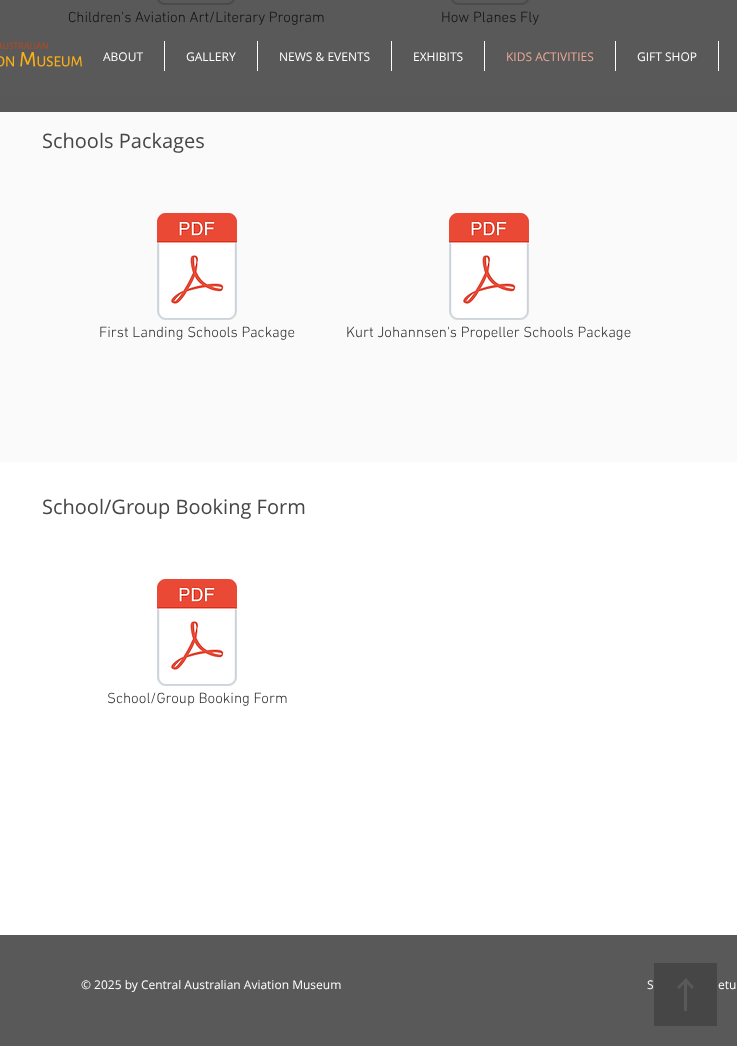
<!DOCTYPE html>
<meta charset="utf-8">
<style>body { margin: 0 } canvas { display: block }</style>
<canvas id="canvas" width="737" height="1046"></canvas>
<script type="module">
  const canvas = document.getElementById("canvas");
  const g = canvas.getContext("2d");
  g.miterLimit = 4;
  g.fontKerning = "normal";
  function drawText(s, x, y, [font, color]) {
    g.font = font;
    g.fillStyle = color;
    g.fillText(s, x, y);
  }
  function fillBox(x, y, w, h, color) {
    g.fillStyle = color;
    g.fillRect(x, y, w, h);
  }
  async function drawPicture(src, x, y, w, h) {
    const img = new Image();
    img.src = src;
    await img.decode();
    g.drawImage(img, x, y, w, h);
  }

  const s1 = ["300 15px 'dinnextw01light'", "#101010"];
  const s2 = ["20px Open Sans", "#464646"];
  const s3 = ["300 15px 'dinnextw01light'", "#2F2E2E"];
  const s4 = ["12px Open Sans", "#FFFFFF"];
  const s5 = ["12px Open Sans", "#ECA995"];

  fillBox(0, 0, 737, 1046, "#FFFFFF");
  fillBox(0, 0, 737, 96, "#595959");
  await drawPicture("pic1.png", 157, 0, 78, 5);
  drawText("Children's Aviation Art/Literary Program", 68, 22, s1);
  await drawPicture("pic1.png", 451, 0, 78, 5);
  drawText("How Planes Fly", 441, 22, s1);
  fillBox(0, 112, 737, 350, "#FAFAFA");
  fillBox(0, 96, 737, 16, "#585858");
  drawText("Schools Packages", 42, 148, s2);
  await drawPicture("pic2.png", 157, 213, 80, 107);
  drawText("First Landing Schools Package", 99, 337, s3);
  await drawPicture("pic2.png", 449, 213, 80, 107);
  drawText("Kurt Johannsen's Propeller Schools Package", 346, 337, s3);
  drawText("School/Group Booking Form", 42, 514, s2);
  await drawPicture("pic3.png", 157, 579, 80, 107);
  drawText("School/Group Booking Form", 107, 703, s3);
  await drawPicture("pic4.png", 0, 41, 82, 26);
  drawText("ABOUT", 103, 61, s4);
  fillBox(164, 41, 1, 30, "#FFFFFF");
  drawText("GALLERY", 186, 61, s4);
  fillBox(257, 41, 1, 30, "#FFFFFF");
  drawText("NEWS & EVENTS", 279, 61, s4);
  fillBox(391, 41, 1, 30, "#FFFFFF");
  drawText("EXHIBITS", 413, 61, s4);
  fillBox(484, 41, 1, 30, "#FFFFFF");
  drawText("KIDS ACTIVITIES", 506, 61, s5);
  fillBox(615, 41, 1, 30, "#FFFFFF");
  drawText("GIFT SHOP", 637, 61, s4);
  fillBox(718, 41, 1, 30, "#FFFFFF");
  fillBox(0, 935, 737, 111, "#595959");
  g.fillStyle = "#464646";
  g.beginPath();
  g.moveTo(654, 963);
  g.lineTo(654, 1026);
  g.lineTo(717, 1026);
  g.lineTo(717, 963);
  g.closePath();
  g.moveTo(692, 989);
  g.lineTo(687, 984);
  g.lineTo(687, 1011);
  g.lineTo(684, 1011);
  g.lineTo(684, 984);
  g.lineTo(679, 989);
  g.lineTo(677, 987);
  g.lineTo(686, 978);
  g.lineTo(694, 987);
  g.closePath();
  g.fill();
  drawText("© 2025 by Central Australian Aviation Museum", 81, 989, s4);
  drawText("S", 647, 989, s4);
  drawText("etu", 718, 989, s4);
</script>
